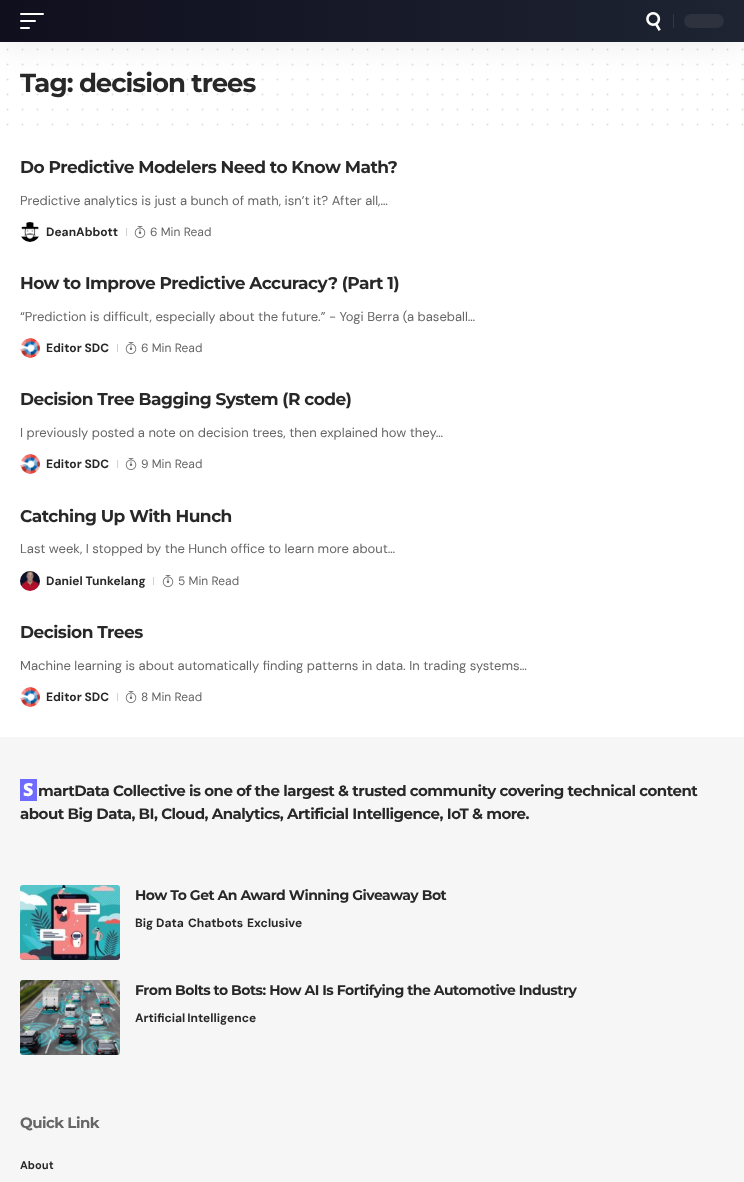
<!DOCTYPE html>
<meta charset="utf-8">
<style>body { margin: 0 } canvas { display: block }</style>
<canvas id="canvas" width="744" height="1182"></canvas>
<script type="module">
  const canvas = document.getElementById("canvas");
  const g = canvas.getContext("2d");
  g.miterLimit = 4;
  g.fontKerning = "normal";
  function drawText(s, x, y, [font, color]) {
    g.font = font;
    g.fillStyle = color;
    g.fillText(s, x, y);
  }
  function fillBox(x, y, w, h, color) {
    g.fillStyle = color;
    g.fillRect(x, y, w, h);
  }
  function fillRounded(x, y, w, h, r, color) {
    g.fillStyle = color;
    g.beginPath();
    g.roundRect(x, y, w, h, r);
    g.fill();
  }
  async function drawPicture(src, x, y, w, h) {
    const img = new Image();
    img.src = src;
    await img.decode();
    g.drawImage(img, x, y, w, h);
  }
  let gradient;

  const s1 = ["bold 26px Montserrat", "#282828"];
  const s2 = ["bold 17px Montserrat", "#282828"];
  const s3 = ["13px DM Sans", "#666666"];
  const s4 = ["bold 12px DM Sans", "#282828"];
  const s5 = ["12px 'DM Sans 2'", "#666666"];
  const s6 = ["900 18px Noto Sans", "#FFFFFF"];
  const s7 = ["bold 15px Montserrat", "#282828"];
  const s8 = ["bold 14px Montserrat", "#282828"];
  const s9 = ["bold 15px Montserrat", "#666666"];
  const s10 = ["bold 11px 'DM Sans 2'", "#282828"];

  fillBox(0, 0, 744, 1182, "#FFFFFF");
  g.beginPath();
  g.moveTo(7.5, 49.5);
  g.lineTo(742.7, 49.5);
  g.strokeStyle = "#DFDFDF";
  g.lineWidth = 2;
  g.lineCap = "round";
  g.setLineDash([0, 15]);
  g.stroke();
  g.beginPath();
  g.moveTo(7.5, 64.5);
  g.lineTo(742.7, 64.5);
  g.stroke();
  g.letterSpacing = "-1px";
  drawText("Tag: decision trees", 20, 92, s1);
  g.beginPath();
  g.moveTo(7.5, 79.5);
  g.lineTo(742.7, 79.5);
  g.strokeStyle = "rgba(40, 40, 40, 0.15)";
  g.stroke();
  g.fillStyle = "rgba(0, 0, 0, 0.07)";
  g.filter = "blur(15px)";
  g.beginPath();
  g.rect(0, 4, 744, 42);
  g.fill();
  g.filter = "none";
  gradient = g.createLinearGradient(0, 21, 744, 21);
  gradient.addColorStop(0, "#100F1E");
  gradient.addColorStop(1, "#1E2432");
  g.fillStyle = gradient;
  g.fillRect(0, 0, 744, 42);
  fillRounded(20, 13, 24, 2, 1, "#FFFFFF");
  fillRounded(20, 20, 16, 2, 1, "#FFFFFF");
  fillRounded(20, 27, 10, 2, 1, "#FFFFFF");
  await drawPicture("pic1.png", 646, 12, 15, 19);
  fillBox(673, 14, 1, 14, "#343845");
  fillRounded(684, 14, 40, 14, 7, "#2D323E");
  g.beginPath();
  g.moveTo(7.5, 94.5);
  g.lineTo(742.7, 94.5);
  g.stroke();
  g.beginPath();
  g.moveTo(7.5, 109.5);
  g.lineTo(742.7, 109.5);
  g.strokeStyle = "#DFDFDF";
  g.stroke();
  g.beginPath();
  g.moveTo(7.5, 124.5);
  g.lineTo(742.7, 124.5);
  g.stroke();
  g.letterSpacing = "-0.5px";
  drawText("Do Predictive Modelers Need to Know Math?", 20, 173, s2);
  g.letterSpacing = "0px";
  drawText("Predictive analytics is just a bunch of math, isn’t it? After all,…", 20, 205, s3);
  await drawPicture("pic2.png", 21, 222, 18, 20);
  drawText("DeanAbbott", 46, 236, s4);
  fillBox(126, 228, 1, 8, "#D1D1D1");
  await drawPicture("pic3.png", 134, 226, 12, 12);
  drawText("6 Min Read", 150, 236, s5);
  g.letterSpacing = "-0.5px";
  drawText("How to Improve Predictive Accuracy? (Part 1)", 20, 289, s2);
  g.letterSpacing = "0px";
  drawText("“Prediction is difficult, especially about the future.” - Yogi Berra (a baseball…", 20, 321, s3);
  await drawPicture("pic4.png", 20, 338, 20, 20);
  drawText("Editor SDC", 46, 352, s4);
  fillBox(117, 344, 1, 8, "#D1D1D1");
  await drawPicture("pic3.png", 125, 342, 12, 12);
  drawText("6 Min Read", 141, 352, s5);
  g.letterSpacing = "-0.5px";
  drawText("Decision Tree Bagging System (R code)", 20, 405, s2);
  g.letterSpacing = "0px";
  drawText("I previously posted a note on decision trees, then explained how they…", 20, 437, s3);
  await drawPicture("pic4.png", 20, 454, 20, 20);
  drawText("Editor SDC", 46, 468, s4);
  fillBox(117, 460, 1, 8, "#D1D1D1");
  await drawPicture("pic3.png", 125, 458, 12, 12);
  drawText("9 Min Read", 141, 468, s5);
  g.letterSpacing = "-0.5px";
  drawText("Catching Up With Hunch", 20, 522, s2);
  g.letterSpacing = "0px";
  drawText("Last week, I stopped by the Hunch office to learn more about…", 20, 553, s3);
  await drawPicture("pic5.png", 20, 571, 20, 20);
  drawText("Daniel Tunkelang", 46, 585, s4);
  fillBox(153, 577, 1, 8, "#D1D1D1");
  await drawPicture("pic3.png", 162, 575, 12, 12);
  drawText("5 Min Read", 178, 585, s5);
  g.letterSpacing = "-0.5px";
  drawText("Decision Trees", 20, 638, s2);
  g.letterSpacing = "0px";
  drawText("Machine learning is about automatically finding patterns in data. In trading systems…", 20, 670, s3);
  await drawPicture("pic4.png", 20, 687, 20, 20);
  drawText("Editor SDC", 46, 701, s4);
  fillBox(117, 693, 1, 8, "#D1D1D1");
  await drawPicture("pic3.png", 125, 691, 12, 12);
  drawText("8 Min Read", 141, 701, s5);
  fillBox(0, 737, 744, 445, "#F6F6F6");
  fillBox(20, 779, 17, 22, "#706BFF");
  g.letterSpacing = "-0.5px";
  drawText("S", 23, 796, s6);
  drawText("martData Collective is one of the largest & trusted community covering technical content", 38, 796, s7);
  drawText("about Big Data, BI, Cloud, Analytics, Artificial Intelligence, IoT & more.", 20, 819, s7);
  await drawPicture("pic6.png", 20, 885, 100, 75);
  drawText("How To Get An Award Winning Giveaway Bot", 135, 900, s8);
  g.letterSpacing = "0px";
  drawText("Big Data", 135, 927, s4);
  drawText("Chatbots", 188, 927, s4);
  drawText("Exclusive", 247, 927, s4);
  await drawPicture("pic7.png", 20, 980, 100, 75);
  g.letterSpacing = "-0.5px";
  drawText("From Bolts to Bots: How AI Is Fortifying the Automotive Industry", 135, 995, s8);
  g.letterSpacing = "0px";
  g.wordSpacing = "-1px";
  drawText("Artificial Intelligence", 135, 1022, s4);
  g.letterSpacing = "-0.5px";
  g.wordSpacing = "0px";
  drawText("Quick Link", 20, 1128, s9);
  g.letterSpacing = "0px";
  drawText("About", 20, 1169, s10);
</script>
